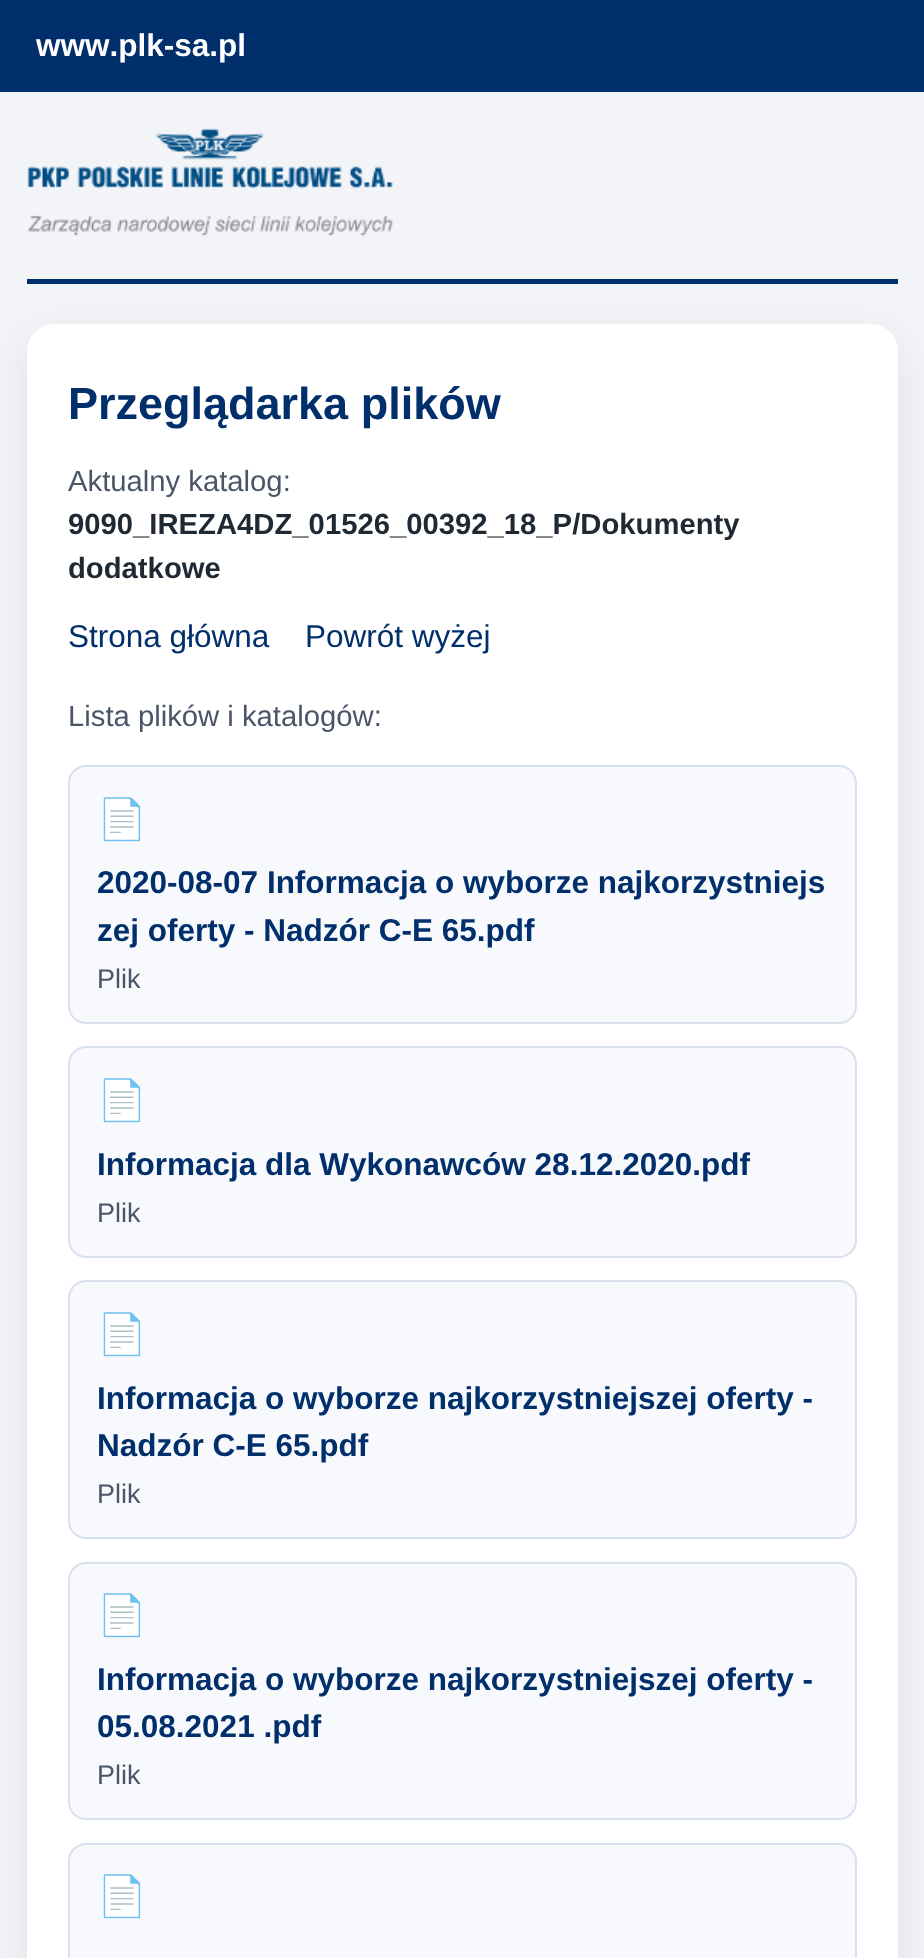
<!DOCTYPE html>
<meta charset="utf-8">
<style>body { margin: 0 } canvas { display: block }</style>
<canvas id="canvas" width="924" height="1958"></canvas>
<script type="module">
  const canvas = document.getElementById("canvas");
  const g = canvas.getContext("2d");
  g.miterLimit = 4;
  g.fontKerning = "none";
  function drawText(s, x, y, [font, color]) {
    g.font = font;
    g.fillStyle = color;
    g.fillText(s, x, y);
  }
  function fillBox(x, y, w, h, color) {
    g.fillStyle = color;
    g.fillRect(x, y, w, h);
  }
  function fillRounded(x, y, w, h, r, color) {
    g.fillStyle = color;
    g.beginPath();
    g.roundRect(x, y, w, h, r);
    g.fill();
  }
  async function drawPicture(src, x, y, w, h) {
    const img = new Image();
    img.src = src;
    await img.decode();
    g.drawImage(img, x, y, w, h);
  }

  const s1 = ["bold 31.5px Liberation Sans", "#FFFFFF"];
  const s2 = ["bold 45px Liberation Sans", "#002F6C"];
  const s3 = ["29.25px Liberation Sans", "#4A5568"];
  const s4 = ["bold 29.25px Liberation Sans", "#1F2933"];
  const s5 = ["31.5px Liberation Sans", "#002F6C"];
  const s6 = ["40px Noto Color Emoji", "#002F6C"];
  const s7 = ["bold 31.5px Liberation Sans", "#002F6C"];
  const s8 = ["27px Liberation Sans", "#4A5568"];

  fillBox(0, 0, 924, 1958, "#F2F4F8");
  fillBox(0, 0, 924, 92, "#002F6C");
  drawText("www.plk-sa.pl", 36, 56, s1);
  await drawPicture("pic1.png", 27, 128, 366, 109);
  g.fillStyle = "rgba(0, 0, 0, 0.08)";
  g.filter = "blur(20px)";
  g.beginPath();
  g.roundRect(27, 338, 871, 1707, 27);
  g.fill();
  g.filter = "none";
  fillBox(27, 279, 871, 5, "#002F6C");
  fillRounded(27, 324, 871, 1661, 27, "#FFFFFF");
  drawText("Przeglądarka plików", 68, 419, s2);
  drawText("Aktualny katalog:", 68, 491, s3);
  drawText("9090_IREZA4DZ_01526_00392_18_P/Dokumenty", 68, 534, s4);
  drawText("dodatkowe", 68, 578, s4);
  drawText("Strona główna", 68, 647, s5);
  drawText("Powrót wyżej", 305, 647, s5);
  drawText("Lista plików i katalogów:", 68, 726, s3);
  g.fillStyle = "#F7F9FC";
  g.beginPath();
  g.roundRect(69, 766, 787, 257, 17);
  g.fill();
  g.strokeStyle = "#D9E2EC";
  g.lineWidth = 2;
  g.stroke();
  drawText("📄", 97, 833, s6);
  drawText("2020-08-07 Informacja o wyborze najkorzystniejs", 97, 893, s7);
  drawText("zej oferty - Nadzór C-E 65.pdf", 97, 941, s7);
  drawText("Plik", 97, 988, s8);
  g.fillStyle = "#F7F9FC";
  g.beginPath();
  g.roundRect(69, 1047, 787, 210, 17);
  g.fill();
  g.stroke();
  drawText("📄", 97, 1114, s6);
  drawText("Informacja dla Wykonawców 28.12.2020.pdf", 97, 1175, s7);
  drawText("Plik", 97, 1222, s8);
  g.fillStyle = "#F7F9FC";
  g.beginPath();
  g.roundRect(69, 1281, 787, 257, 17);
  g.fill();
  g.stroke();
  drawText("📄", 97, 1348, s6);
  drawText("Informacja o wyborze najkorzystniejszej oferty -", 97, 1409, s7);
  drawText("Nadzór C-E 65.pdf", 97, 1456, s7);
  drawText("Plik", 97, 1503, s8);
  g.fillStyle = "#F7F9FC";
  g.beginPath();
  g.roundRect(69, 1563, 787, 256, 17);
  g.fill();
  g.stroke();
  drawText("📄", 97, 1629, s6);
  drawText("Informacja o wyborze najkorzystniejszej oferty -", 97, 1690, s7);
  drawText("05.08.2021 .pdf", 97, 1737, s7);
  drawText("Plik", 97, 1784, s8);
  g.fillStyle = "#F7F9FC";
  g.beginPath();
  g.roundRect(69, 1844, 787, 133, 17);
  g.fill();
  g.stroke();
  drawText("📄", 97, 1910, s6);
</script>
